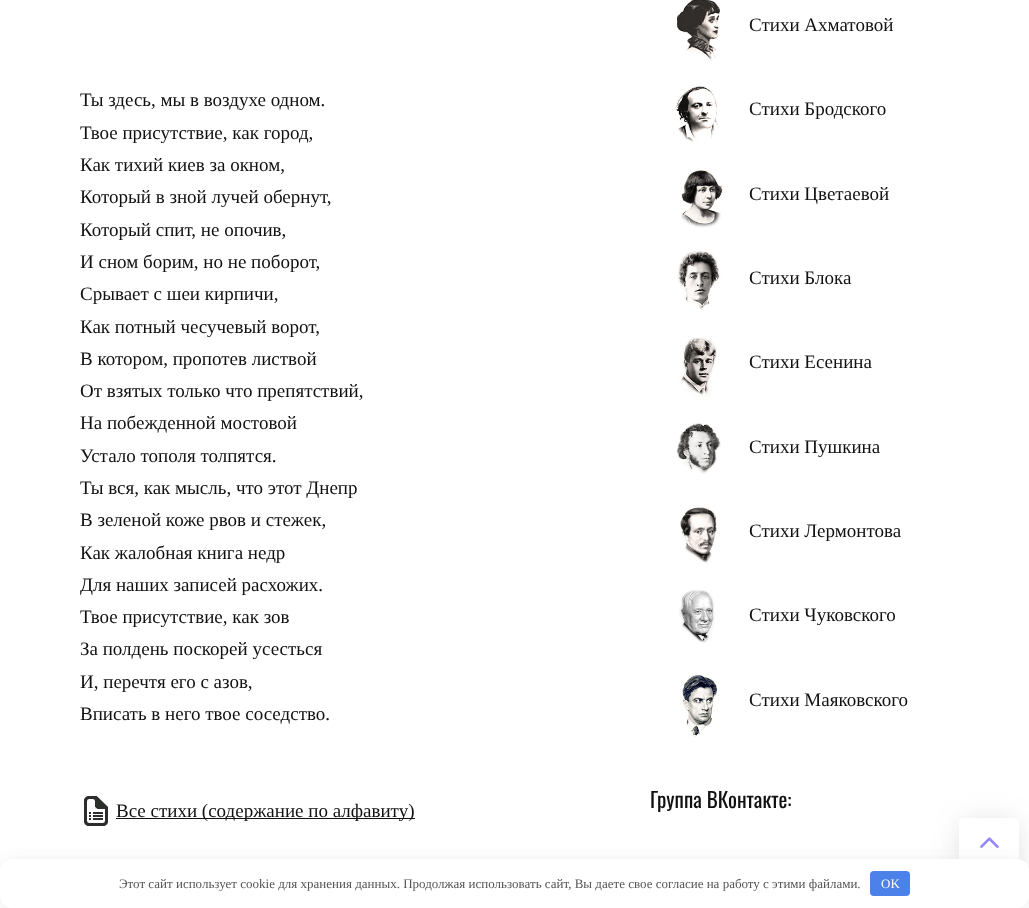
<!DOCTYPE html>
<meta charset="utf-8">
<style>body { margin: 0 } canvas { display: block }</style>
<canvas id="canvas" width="1029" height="908"></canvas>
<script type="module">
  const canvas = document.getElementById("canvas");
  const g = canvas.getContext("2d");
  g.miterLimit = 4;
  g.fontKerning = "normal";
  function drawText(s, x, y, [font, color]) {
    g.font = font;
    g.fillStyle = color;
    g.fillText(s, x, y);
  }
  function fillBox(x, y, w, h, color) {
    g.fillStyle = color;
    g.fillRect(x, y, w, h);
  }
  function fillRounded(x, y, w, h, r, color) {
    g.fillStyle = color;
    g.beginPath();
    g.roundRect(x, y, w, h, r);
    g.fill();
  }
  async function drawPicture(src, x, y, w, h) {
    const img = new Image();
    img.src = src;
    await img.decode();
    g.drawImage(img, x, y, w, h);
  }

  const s1 = ["19px Liberation Serif", "#111111"];
  const s2 = ["21px Oswald", "#111111"];
  const s3 = ["32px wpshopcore", "#9489FE"];
  const s4 = ["13px Liberation Serif", "#555555"];
  const s5 = ["13px Liberation Serif", "#FFFFFF"];

  fillBox(0, 0, 1029, 908, "#FFFFFF");
  drawText("Ты здесь, мы в воздухе одном.", 80, 106, s1);
  drawText("Твое присутствие, как город,", 80, 139, s1);
  drawText("Как тихий киев за окном,", 80, 171, s1);
  drawText("Который в зной лучей обернут,", 80, 203, s1);
  drawText("Который спит, не опочив,", 80, 236, s1);
  drawText("И сном борим, но не поборот,", 80, 268, s1);
  drawText("Срывает с шеи кирпичи,", 80, 300, s1);
  drawText("Как потный чесучевый ворот,", 80, 333, s1);
  drawText("В котором, пропотев листвой", 80, 365, s1);
  drawText("От взятых только что препятствий,", 80, 397, s1);
  drawText("На побежденной мостовой", 80, 429, s1);
  drawText("Устало тополя толпятся.", 80, 462, s1);
  drawText("Ты вся, как мысль, что этот Днепр", 80, 494, s1);
  drawText("В зеленой коже рвов и стежек,", 80, 526, s1);
  drawText("Как жалобная книга недр", 80, 559, s1);
  drawText("Для наших записей расхожих.", 80, 591, s1);
  drawText("Твое присутствие, как зов", 80, 623, s1);
  drawText("За полдень поскорей усесться", 80, 655, s1);
  drawText("И, перечтя его с азов,", 80, 688, s1);
  drawText("Вписать в него твое соседство.", 80, 720, s1);
  await drawPicture("pic1.png", 84, 796, 24, 30);
  fillBox(116, 818, 299, 1, "#111111");
  drawText("Все стихи (содержание по алфавиту)", 116, 817, s1);
  await drawPicture("pic2.png", 676, 0, 44, 62);
  drawText("Стихи Ахматовой", 749, 31, s1);
  await drawPicture("pic3.png", 675, 86, 43, 57);
  drawText("Стихи Бродского", 749, 115, s1);
  await drawPicture("pic4.png", 681, 170, 42, 58);
  drawText("Стихи Цветаевой", 749, 200, s1);
  await drawPicture("pic5.png", 677, 251, 44, 59);
  drawText("Стихи Блока", 749, 284, s1);
  await drawPicture("pic6.png", 679, 337, 38, 63);
  drawText("Стихи Есенина", 749, 368, s1);
  await drawPicture("pic7.png", 676, 423, 45, 51);
  drawText("Стихи Пушкина", 749, 453, s1);
  await drawPicture("pic8.png", 680, 507, 37, 56);
  drawText("Стихи Лермонтова", 749, 537, s1);
  await drawPicture("pic9.png", 679, 589, 36, 54);
  drawText("Стихи Чуковского", 749, 621, s1);
  await drawPicture("pic10.png", 682, 674, 37, 63);
  drawText("Стихи Маяковского", 749, 706, s1);
  drawText("Группа ВКонтакте:", 650, 808, s2);
  g.fillStyle = "rgba(102, 102, 102, 0.3)";
  g.filter = "blur(15px)";
  g.beginPath();
  g.rect(964, 826, 50, 40);
  g.fill();
  g.filter = "none";
  fillRounded(959, 818, 60, 50, 4, "#FFFFFF");
  drawText("︿", 973, 856, s3);
  g.fillStyle = "rgba(41, 44, 56, 0.2)";
  g.filter = "blur(10px)";
  g.beginPath();
  g.roundRect(5, 867, 1019, 39, 7);
  g.fill();
  g.filter = "none";
  fillRounded(0, 859, 1029, 49, 12, "#FFFFFF");
  drawText("Этот сайт использует cookie для хранения данных. Продолжая использовать сайт, Вы даете свое согласие на работу с этими файлами.", 119, 888, s4);
  fillRounded(870, 871, 40, 25, 4, "#4B81E8");
  drawText("OK", 881, 888, s5);
</script>
